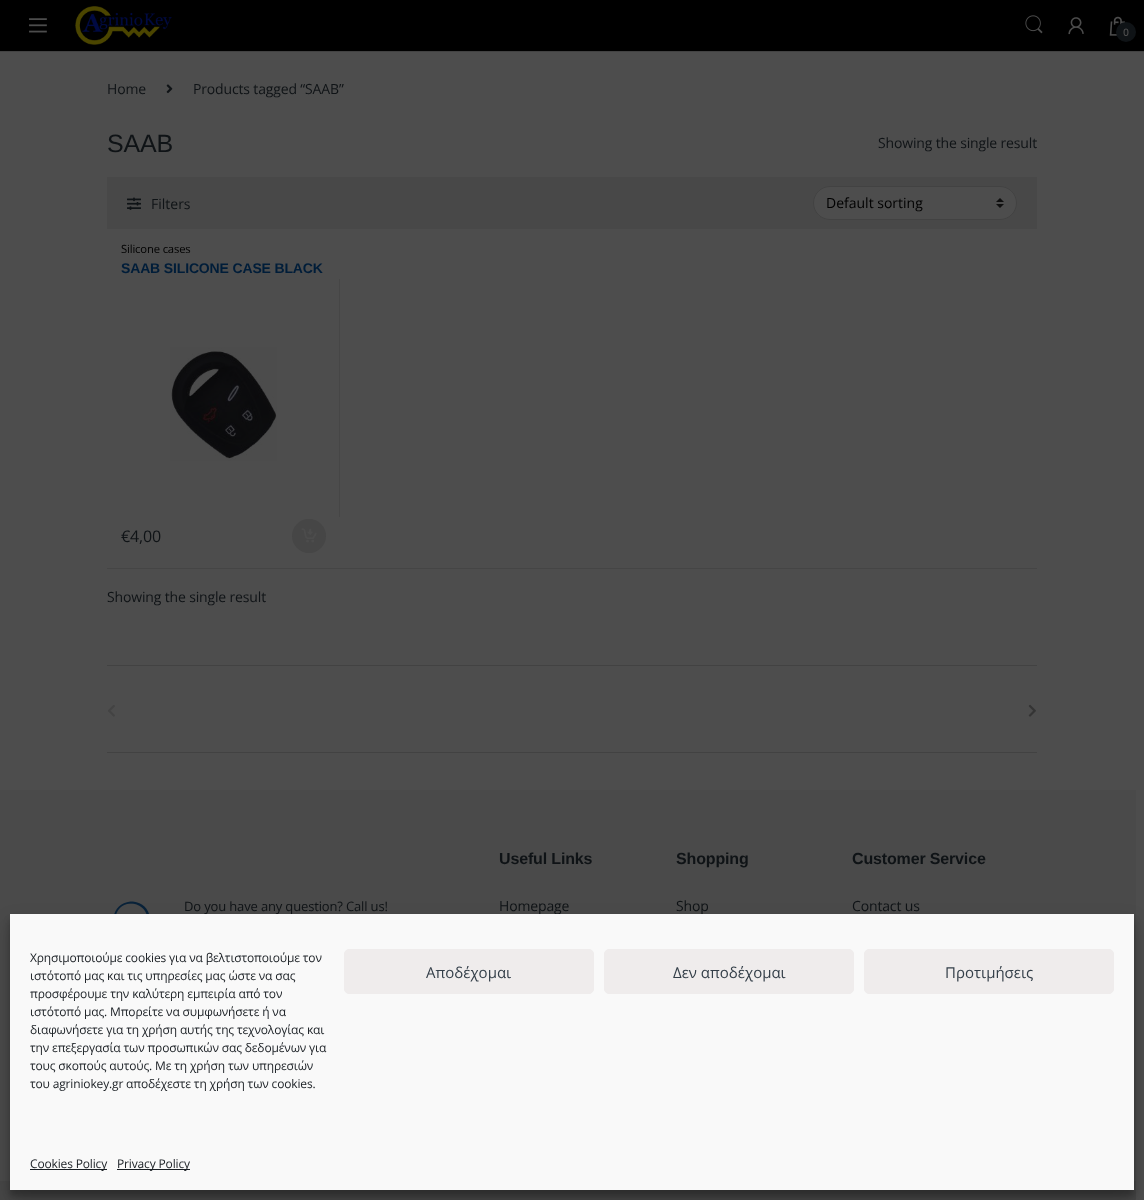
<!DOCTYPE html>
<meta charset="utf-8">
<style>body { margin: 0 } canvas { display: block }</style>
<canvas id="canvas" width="1144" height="1200"></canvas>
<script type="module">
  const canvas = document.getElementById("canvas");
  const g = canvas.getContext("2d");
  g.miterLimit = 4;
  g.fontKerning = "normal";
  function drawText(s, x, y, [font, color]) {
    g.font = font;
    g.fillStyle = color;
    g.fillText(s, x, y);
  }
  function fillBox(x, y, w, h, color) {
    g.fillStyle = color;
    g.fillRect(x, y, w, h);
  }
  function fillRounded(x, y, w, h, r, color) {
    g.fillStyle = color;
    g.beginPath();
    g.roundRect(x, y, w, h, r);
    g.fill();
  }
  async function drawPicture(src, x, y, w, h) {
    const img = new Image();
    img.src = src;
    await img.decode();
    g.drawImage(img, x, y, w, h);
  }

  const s1 = ["bold 10px Open Sans", "#4D4D4D"];
  const s2 = ["14px Open Sans", "#0F1316"];
  const s3 = ["25px Liberation Sans", "#0F1316"];
  const s4 = ["14px Open Sans", "#000000"];
  const s5 = ["11.25px Open Sans", "#000000"];
  const s6 = ["bold 14px Liberation Sans", "#001D39"];
  const s7 = ["16px Open Sans", "#0F1316"];
  const s8 = ["13px Open Sans", "#0F1316"];
  const s9 = ["bold 16px Liberation Sans", "#0F1316"];
  const s10 = ["12px Open Sans", "#191E23"];
  const s11 = ["15px Open Sans", "#333E48"];

  fillBox(0, 0, 1144, 1200, "#4D4D4D");
  fillBox(0, 51, 1144, 1, "#424242");
  fillBox(0, 0, 1144, 51, "#000000");
  await drawPicture("pic1.png", 29, 18, 18, 15);
  await drawPicture("pic2.png", 75, 6, 97, 39);
  await drawPicture("pic3.png", 1025, 15, 18, 19);
  await drawPicture("pic4.png", 1068, 17, 16, 18);
  await drawPicture("pic5.png", 1109, 16, 16, 20);
  g.fillStyle = "#0F1316";
  g.beginPath();
  g.arc(1126, 32, 10, 0, Math.PI * 2);
  g.fill();
  g.letterSpacing = "-0.15px";
  drawText("0", 1123, 36, s1);
  drawText("Home", 107, 94, s2);
  await drawPicture("pic6.png", 166, 84, 7, 10);
  drawText("Products tagged “SAAB”", 193, 94, s2);
  drawText("SAAB", 107, 152, s3);
  drawText("Showing the single result", 878, 148, s2);
  fillBox(107, 177, 930, 52, "#484848");
  await drawPicture("pic7.png", 127, 197, 14, 13);
  g.letterSpacing = "0px";
  drawText("Filters", 151, 209, s2);
  fillRounded(813, 186, 204, 34, 17, "#4D4D4D");
  await drawPicture("pic8.png", 996, 198, 8, 10);
  g.beginPath();
  g.roundRect(813.5, 186.5, 203, 33, 16.5);
  g.strokeStyle = "#424242";
  g.stroke();
  drawText("Default sorting", 826, 208, s4);
  g.letterSpacing = "-0.15px";
  drawText("Silicone cases", 121, 253, s5);
  drawText("SAAB SILICONE CASE BLACK", 121, 273, s6);
  await drawPicture("pic9.png", 170, 347, 107, 114);
  drawText("€4,00", 121, 542, s7);
  g.fillStyle = "#464646";
  g.beginPath();
  g.arc(309, 536, 17, 0, Math.PI * 2);
  g.fill();
  await drawPicture("pic10.png", 301, 528, 16, 15);
  fillBox(339, 279, 1, 238, "#464646");
  fillBox(107, 568, 930, 1, "#454545");
  drawText("Showing the single result", 107, 602, s2);
  fillBox(107, 665, 930, 1, "#424242");
  fillBox(107, 752, 930, 1, "#424242");
  await drawPicture("pic11.png", 108, 705, 7, 12);
  await drawPicture("pic12.png", 1028, 704, 8, 13);
  fillBox(0, 790, 1136, 391, "#4A4A4A");
  await drawPicture("pic13.png", 114, 901, 35, 13);
  drawText("Do you have any question? Call us!", 184, 911, s8);
  drawText("Useful Links", 499, 864, s9);
  drawText("Homepage", 499, 911, s2);
  drawText("Shopping", 676, 864, s9);
  drawText("Shop", 676, 911, s2);
  drawText("Customer Service", 852, 864, s9);
  drawText("Contact us", 852, 911, s2);
  fillBox(0, 1181, 1136, 19, "#464646");
  g.fillStyle = "rgba(0, 0, 0, 0.23)";
  g.filter = "blur(3px)";
  g.beginPath();
  g.rect(10, 920, 1124, 276);
  g.fill();
  g.filter = "none";
  g.fillStyle = "rgba(0, 0, 0, 0.19)";
  g.filter = "blur(10px)";
  g.beginPath();
  g.rect(10, 924, 1124, 276);
  g.fill();
  g.filter = "none";
  fillBox(10, 914, 1124, 276, "#F9F9F9");
  drawText("Χρησιμοποιούμε cookies για να βελτιστοποιούμε τον", 30, 962, s10);
  drawText("ιστότοπό μας και τις υπηρεσίες μας ώστε να σας", 30, 980, s10);
  drawText("προσφέρουμε την καλύτερη εμπειρία από τον", 30, 998, s10);
  drawText("ιστότοπό μας. Μπορείτε να συμφωνήσετε ή να", 30, 1016, s10);
  drawText("διαφωνήσετε για τη χρήση αυτής της τεχνολογίας και", 30, 1034, s10);
  drawText("την επεξεργασία των προσωπικών σας δεδομένων για", 30, 1052, s10);
  drawText("τους σκοπούς αυτούς. Με τη χρήση των υπηρεσιών", 30, 1070, s10);
  drawText("του agriniokey.gr αποδέχεστε τη χρήση των cookies.", 30, 1088, s10);
  g.fillStyle = "#EFECEC";
  g.beginPath();
  g.roundRect(344.5, 949.5, 249, 44, 4.5);
  g.fill();
  g.strokeStyle = "#EFECEC";
  g.stroke();
  g.letterSpacing = "0px";
  drawText("Αποδέχομαι", 426, 978, s11);
  g.fillStyle = "#EFECEC";
  g.beginPath();
  g.roundRect(604.5, 949.5, 249, 44, 4.5);
  g.fill();
  g.stroke();
  drawText("Δεν αποδέχομαι", 673, 978, s11);
  g.fillStyle = "#EFECEC";
  g.beginPath();
  g.roundRect(864.5, 949.5, 249, 44, 4.5);
  g.fill();
  g.stroke();
  drawText("Προτιμήσεις", 945, 978, s11);
  fillBox(30, 1169, 77, 1, "#191E23");
  g.letterSpacing = "-0.15px";
  drawText("Cookies Policy", 30, 1168, s10);
  fillBox(117, 1169, 73, 1, "#191E23");
  drawText("Privacy Policy", 117, 1168, s10);
</script>
